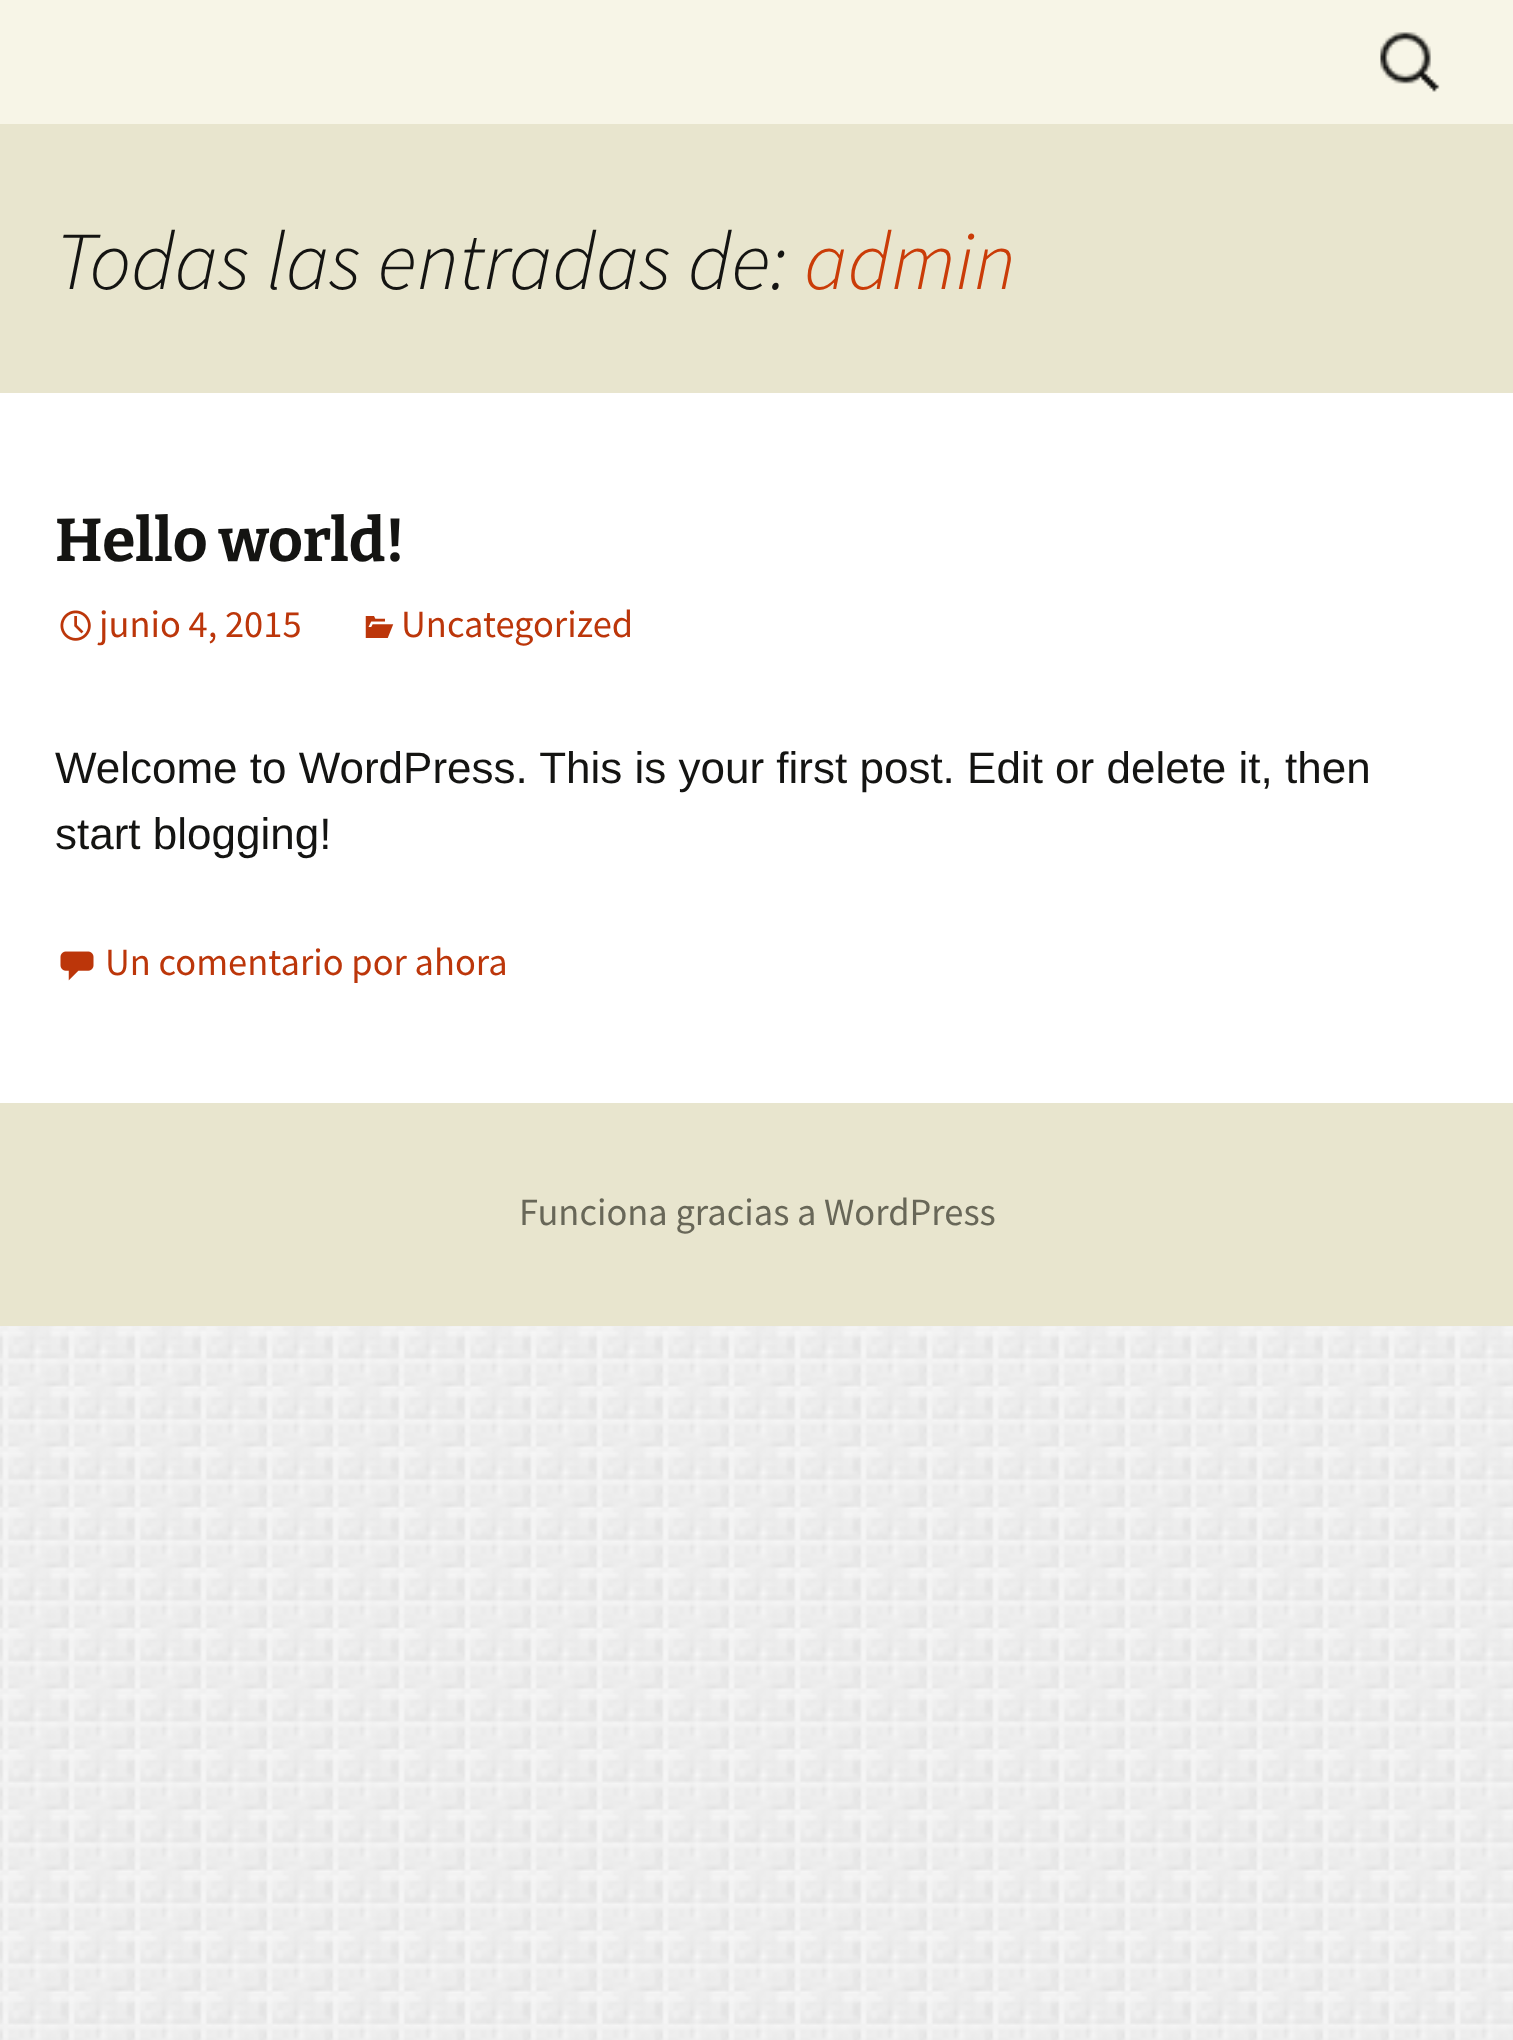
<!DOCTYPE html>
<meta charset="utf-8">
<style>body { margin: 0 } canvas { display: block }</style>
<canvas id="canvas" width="1513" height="2040"></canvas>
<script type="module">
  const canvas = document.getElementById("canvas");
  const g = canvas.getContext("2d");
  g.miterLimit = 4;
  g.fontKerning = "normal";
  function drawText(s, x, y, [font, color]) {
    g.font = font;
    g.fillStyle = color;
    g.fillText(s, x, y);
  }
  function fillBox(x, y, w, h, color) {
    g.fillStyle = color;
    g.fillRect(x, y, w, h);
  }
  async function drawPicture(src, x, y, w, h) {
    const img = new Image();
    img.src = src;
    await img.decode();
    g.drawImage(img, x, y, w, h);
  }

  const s1 = ["italic 300 82.5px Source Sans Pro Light", "#141412"];
  const s2 = ["italic 300 82.5px Source Sans Pro Light", "#CA3C08"];
  const s3 = ["100 60.5px Bitter", "#141412"];
  const s4 = ["38.5px Source Sans Pro", "#BC360A"];
  const s5 = ["44px Liberation Sans", "#141412"];
  const s6 = ["38.5px Source Sans Pro", "#686758"];

  fillBox(0, 0, 1513, 2040, "#FFFFFF");
  await drawPicture("pic1.png", 0, 1326, 1513, 714);
  fillBox(0, 0, 1513, 124, "#F7F5E7");
  await drawPicture("pic2.png", 1380, 32, 60, 60);
  fillBox(0, 124, 1513, 269, "#E8E5CE");
  drawText("Todas las entradas de:", 55, 289, s1);
  drawText("admin", 804, 289, s2);
  drawText("Hello world!", 55, 561, s3);
  await drawPicture("pic3.png", 60, 610, 31, 31);
  drawText("junio 4, 2015", 99, 637, s4);
  await drawPicture("pic4.png", 365, 616, 29, 22);
  drawText("Uncategorized", 401, 637, s4);
  drawText("Welcome to WordPress. This is your first post. Edit or delete it, then", 55, 783, s5);
  drawText("start blogging!", 55, 849, s5);
  await drawPicture("pic5.png", 60, 951, 34, 30);
  drawText("Un comentario por ahora", 105, 975, s4);
  fillBox(0, 1103, 1513, 223, "#E8E5CE");
  drawText("Funciona gracias a WordPress", 519, 1225, s6);
</script>
